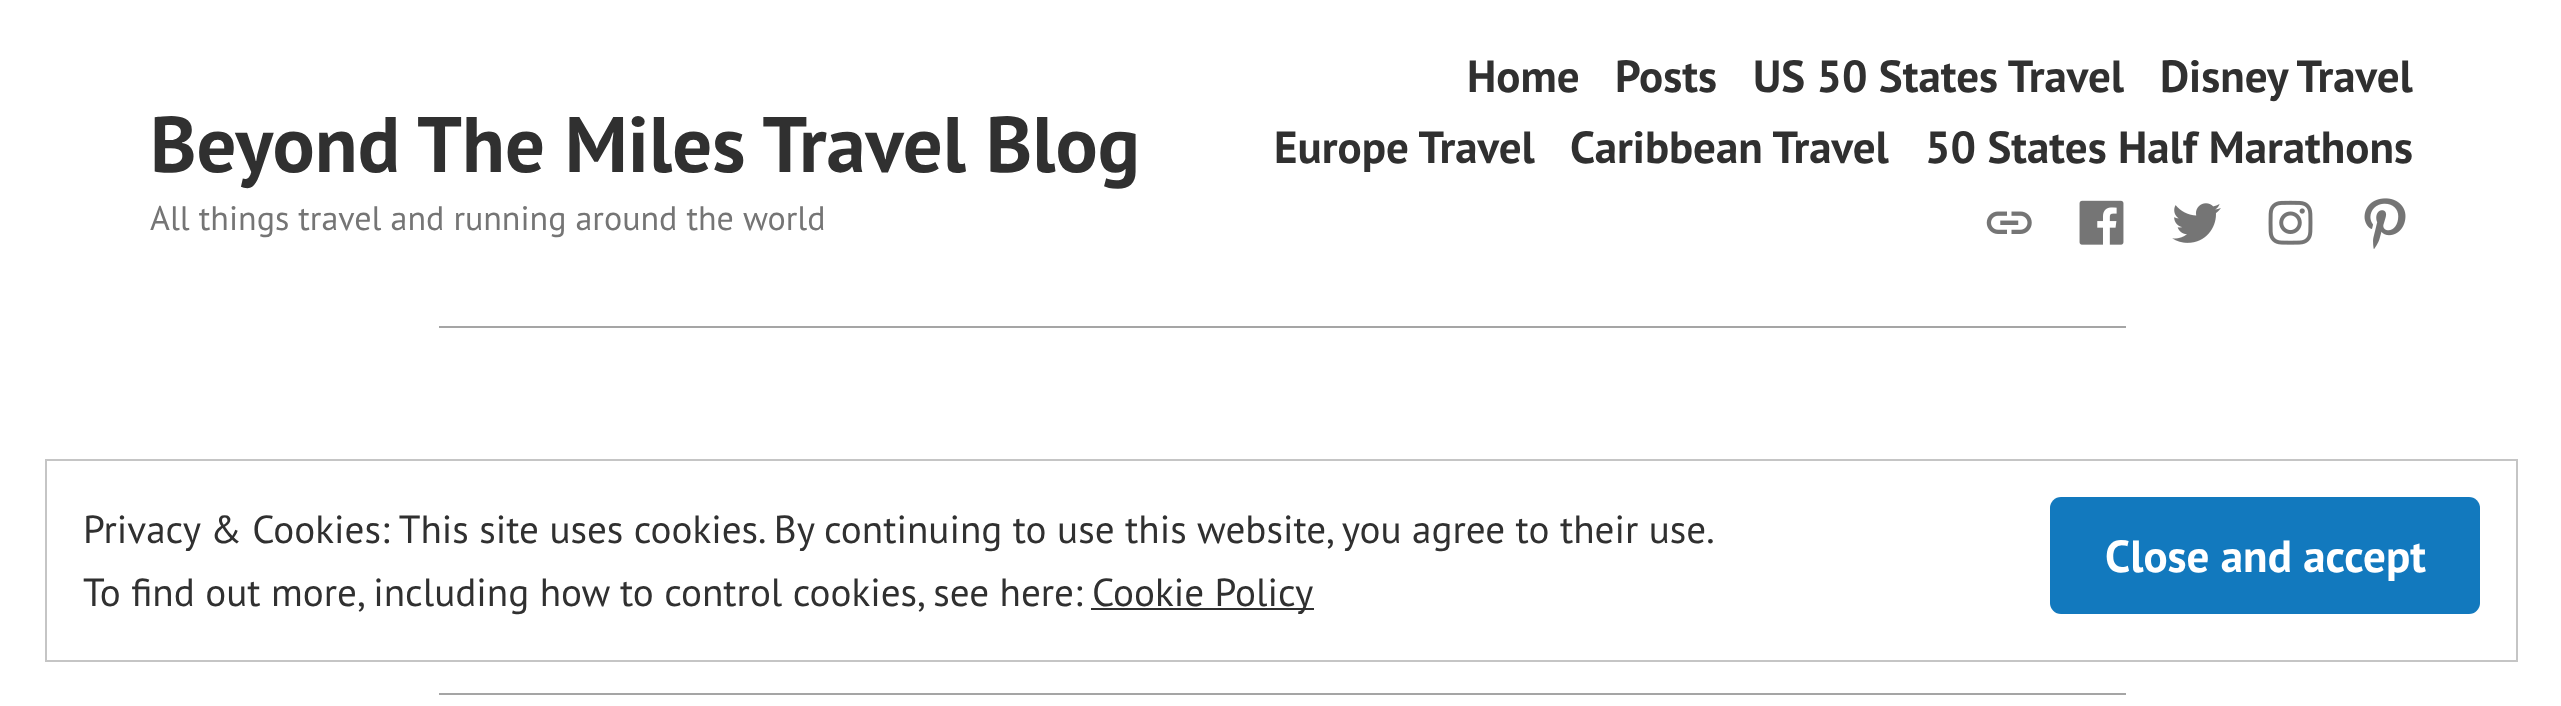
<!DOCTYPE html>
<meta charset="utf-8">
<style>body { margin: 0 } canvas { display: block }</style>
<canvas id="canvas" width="2561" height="706"></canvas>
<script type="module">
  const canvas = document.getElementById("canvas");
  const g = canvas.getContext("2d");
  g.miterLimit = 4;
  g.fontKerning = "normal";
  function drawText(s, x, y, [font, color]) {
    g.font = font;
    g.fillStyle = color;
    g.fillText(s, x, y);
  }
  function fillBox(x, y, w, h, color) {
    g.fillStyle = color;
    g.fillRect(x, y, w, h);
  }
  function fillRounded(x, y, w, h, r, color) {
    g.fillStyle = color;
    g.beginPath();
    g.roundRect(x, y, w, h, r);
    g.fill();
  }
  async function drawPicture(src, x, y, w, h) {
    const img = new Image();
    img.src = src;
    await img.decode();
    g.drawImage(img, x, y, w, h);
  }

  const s1 = ["bold 78.75px PT Sans", "#303030"];
  const s2 = ["bold 45px PT Sans", "#303030"];
  const s3 = ["34px PT Sans", "#757575"];
  const s4 = ["39.15px PT Sans", "#303030"];
  const s5 = ["bold 45px PT Sans", "#FFFFFF"];

  fillBox(0, 0, 2561, 706, "#FFFFFF");
  drawText("Beyond The Miles Travel Blog", 150, 172, s1);
  drawText("Home", 1467, 92, s2);
  drawText("Posts", 1615, 92, s2);
  drawText("US 50 States Travel", 1753, 92, s2);
  drawText("Disney Travel", 2160, 92, s2);
  drawText("Europe Travel", 1274, 163, s2);
  drawText("Caribbean Travel", 1570, 163, s2);
  drawText("50 States Half Marathons", 1925, 163, s2);
  drawText("All things travel and running around the world", 150, 230, s3);
  await drawPicture("pic1.png", 1986, 211, 46, 23);
  await drawPicture("pic2.png", 2079, 200, 45, 45);
  await drawPicture("pic3.png", 2172, 203, 49, 40);
  await drawPicture("pic4.png", 2268, 200, 45, 45);
  await drawPicture("pic5.png", 2364, 198, 42, 51);
  fillBox(439, 326, 1687, 2, "#A5A5A5");
  fillBox(439, 693, 1687, 2, "#A5A5A5");
  g.strokeStyle = "#C5C5C5";
  g.lineWidth = 2;
  g.strokeRect(46, 460, 2471, 201);
  drawText("Privacy & Cookies: This site uses cookies. By continuing to use this website, you agree to their use.", 83, 543, s4);
  fillRounded(2050, 497, 430, 117, 11, "#1279BE");
  drawText("Close and accept", 2105, 572, s5);
  drawText("To find out more, including how to control cookies, see here:", 83, 606, s4);
  fillBox(1091, 608, 223, 2, "#303030");
  drawText("Cookie Policy", 1092, 606, s4);
</script>
